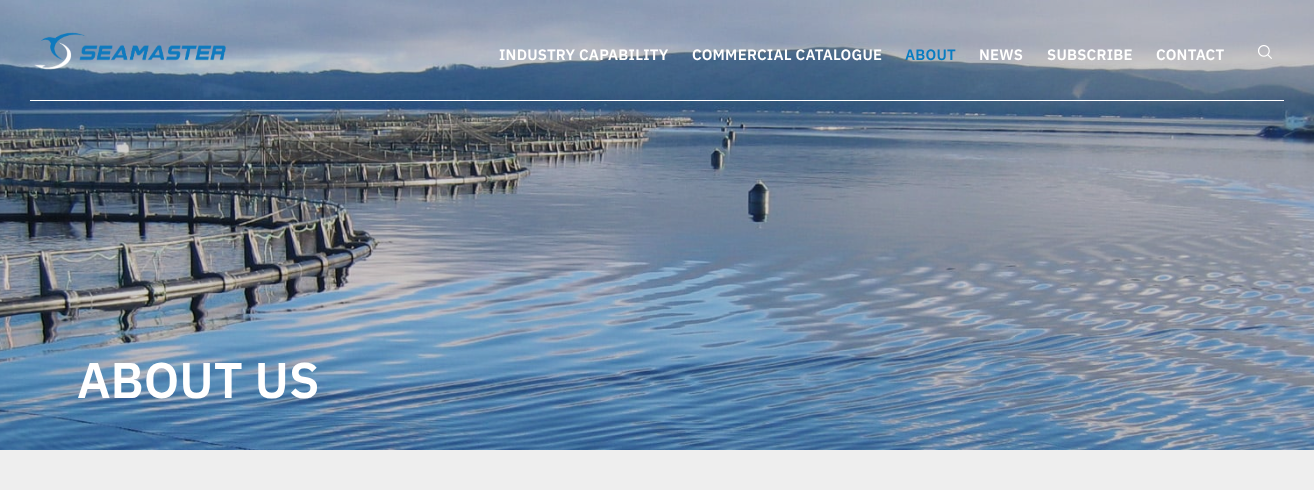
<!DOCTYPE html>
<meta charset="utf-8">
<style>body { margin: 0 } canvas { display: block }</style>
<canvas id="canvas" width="1314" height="490"></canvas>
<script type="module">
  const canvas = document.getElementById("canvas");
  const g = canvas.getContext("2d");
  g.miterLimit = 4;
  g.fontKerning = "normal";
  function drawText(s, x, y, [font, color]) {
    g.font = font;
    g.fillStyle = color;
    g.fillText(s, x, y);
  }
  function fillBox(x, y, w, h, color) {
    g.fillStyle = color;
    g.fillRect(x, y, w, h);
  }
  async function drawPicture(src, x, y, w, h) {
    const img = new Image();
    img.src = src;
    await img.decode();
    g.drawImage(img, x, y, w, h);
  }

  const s1 = ["600 15px IBM Plex Sans", "#FFFFFF"];
  const s2 = ["600 15px IBM Plex Sans", "#077CC1"];
  const s3 = ["600 50px IBM Plex Sans", "#FFFFFF"];

  fillBox(0, 0, 1314, 490, "#FFFFFF");
  await drawPicture("pic3.png", 0, 0, 1314, 450);
  fillBox(30, 100, 1254, 1, "#FFFFFF");
  await drawPicture("pic1.png", 34, 32, 192, 38);
  g.letterSpacing = "0.25px";
  drawText("INDUSTRY CAPABILITY", 499, 60, s1);
  drawText("COMMERCIAL CATALOGUE", 692, 60, s1);
  drawText("ABOUT", 905, 60, s2);
  drawText("NEWS", 979, 60, s1);
  drawText("SUBSCRIBE", 1047, 60, s1);
  drawText("CONTACT", 1156, 60, s1);
  await drawPicture("pic2.png", 1258, 45, 14, 14);
  g.letterSpacing = "0px";
  drawText("ABOUT US", 77, 398, s3);
  fillBox(0, 450, 1314, 40, "#EEEEEE");
</script>
